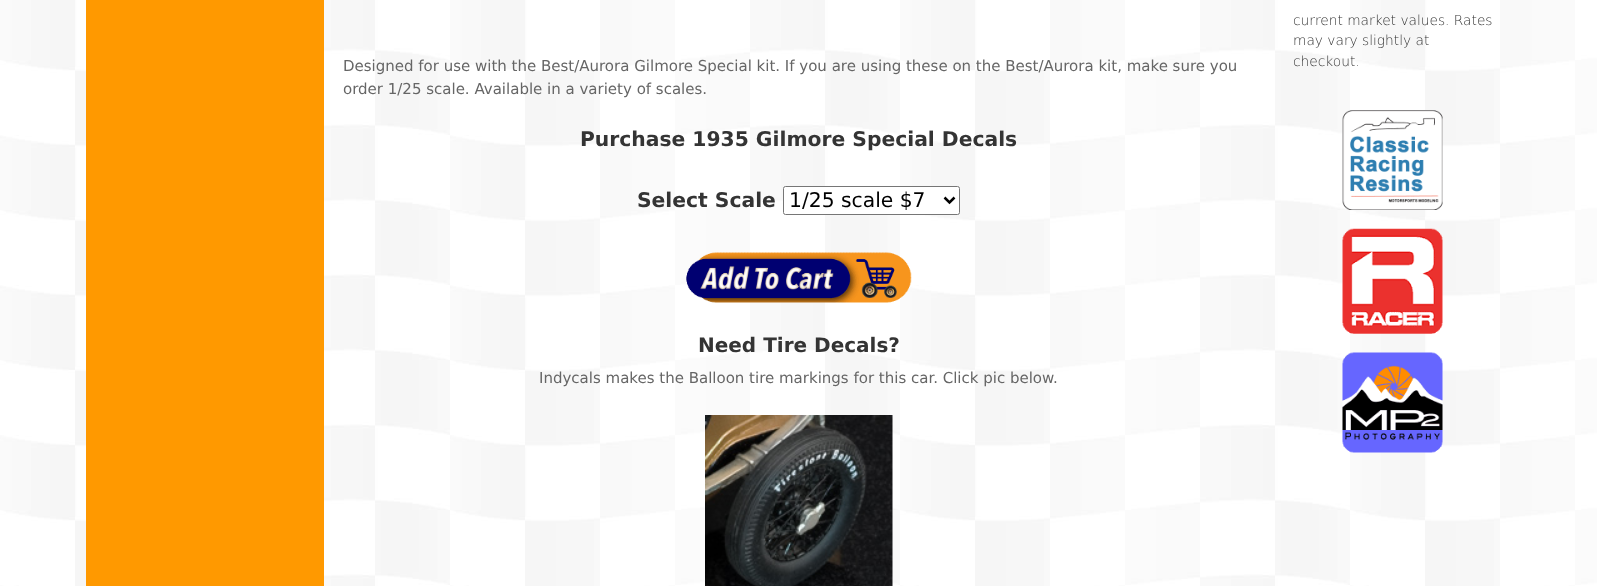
<!DOCTYPE html>
<meta charset="utf-8">
<style>body { margin: 0 } canvas { display: block }</style>
<canvas id="canvas" width="1597" height="586"></canvas>
<script type="module">
  const canvas = document.getElementById("canvas");
  const g = canvas.getContext("2d");
  g.miterLimit = 4;
  g.fontKerning = "normal";
  function drawText(s, x, y, [font, color]) {
    g.font = font;
    g.fillStyle = color;
    g.fillText(s, x, y);
  }
  function fillBox(x, y, w, h, color) {
    g.fillStyle = color;
    g.fillRect(x, y, w, h);
  }
  async function drawPicture(src, x, y, w, h) {
    const img = new Image();
    img.src = src;
    await img.decode();
    g.drawImage(img, x, y, w, h);
  }

  const s1 = ["200 13.75px DejaVu Sans", "#343434"];
  const s2 = ["15px DejaVu Sans", "#666666"];
  const s3 = ["bold 20.3px DejaVu Sans", "#343434"];
  const s4 = ["20.3px DejaVu Sans", "#000000"];
  const s5 = ["bold 20px DejaVu Sans", "#343434"];

  fillBox(0, 0, 1597, 586, "#FFFFFF");
  await drawPicture("pic1.png", 0, 0, 1597, 586);
  fillBox(86, 0, 238, 586, "#FF9900");
  drawText("current market values. Rates", 1293, 25, s1);
  drawText("may vary slightly at", 1293, 45, s1);
  drawText("checkout.", 1293, 66, s1);
  await drawPicture("pic2.png", 1342, 110, 101, 100);
  await drawPicture("pic3.png", 1342, 228, 101, 106);
  await drawPicture("pic4.png", 1342, 352, 101, 101);
  drawText("Designed for use with the Best/Aurora Gilmore Special kit. If you are using these on the Best/Aurora kit, make sure you", 343, 71, s2);
  drawText("order 1/25 scale. Available in a variety of scales.", 343, 94, s2);
  drawText("Purchase 1935 Gilmore Special Decals", 580, 146, s3);
  drawText("Select Scale", 637, 207, s3);
  g.fillStyle = "#FFFFFF";
  g.beginPath();
  g.roundRect(783.5, 186.5, 176, 28, 2);
  g.fill();
  g.strokeStyle = "#767676";
  g.stroke();
  g.beginPath();
  g.moveTo(944.5, 197.5);
  g.lineTo(949.5, 202.5);
  g.lineTo(954.5, 197.5);
  g.strokeStyle = "#000000";
  g.lineWidth = 2.5;
  g.stroke();
  drawText("1/25 scale $7", 789, 207, s4);
  await drawPicture("pic5.png", 686, 252, 226, 51);
  drawText("Need Tire Decals?", 698, 352, s5);
  drawText("Indycals makes the Balloon tire markings for this car. Click pic below.", 539, 383, s2);
  await drawPicture("pic6.png", 705, 415, 188, 171);
</script>
